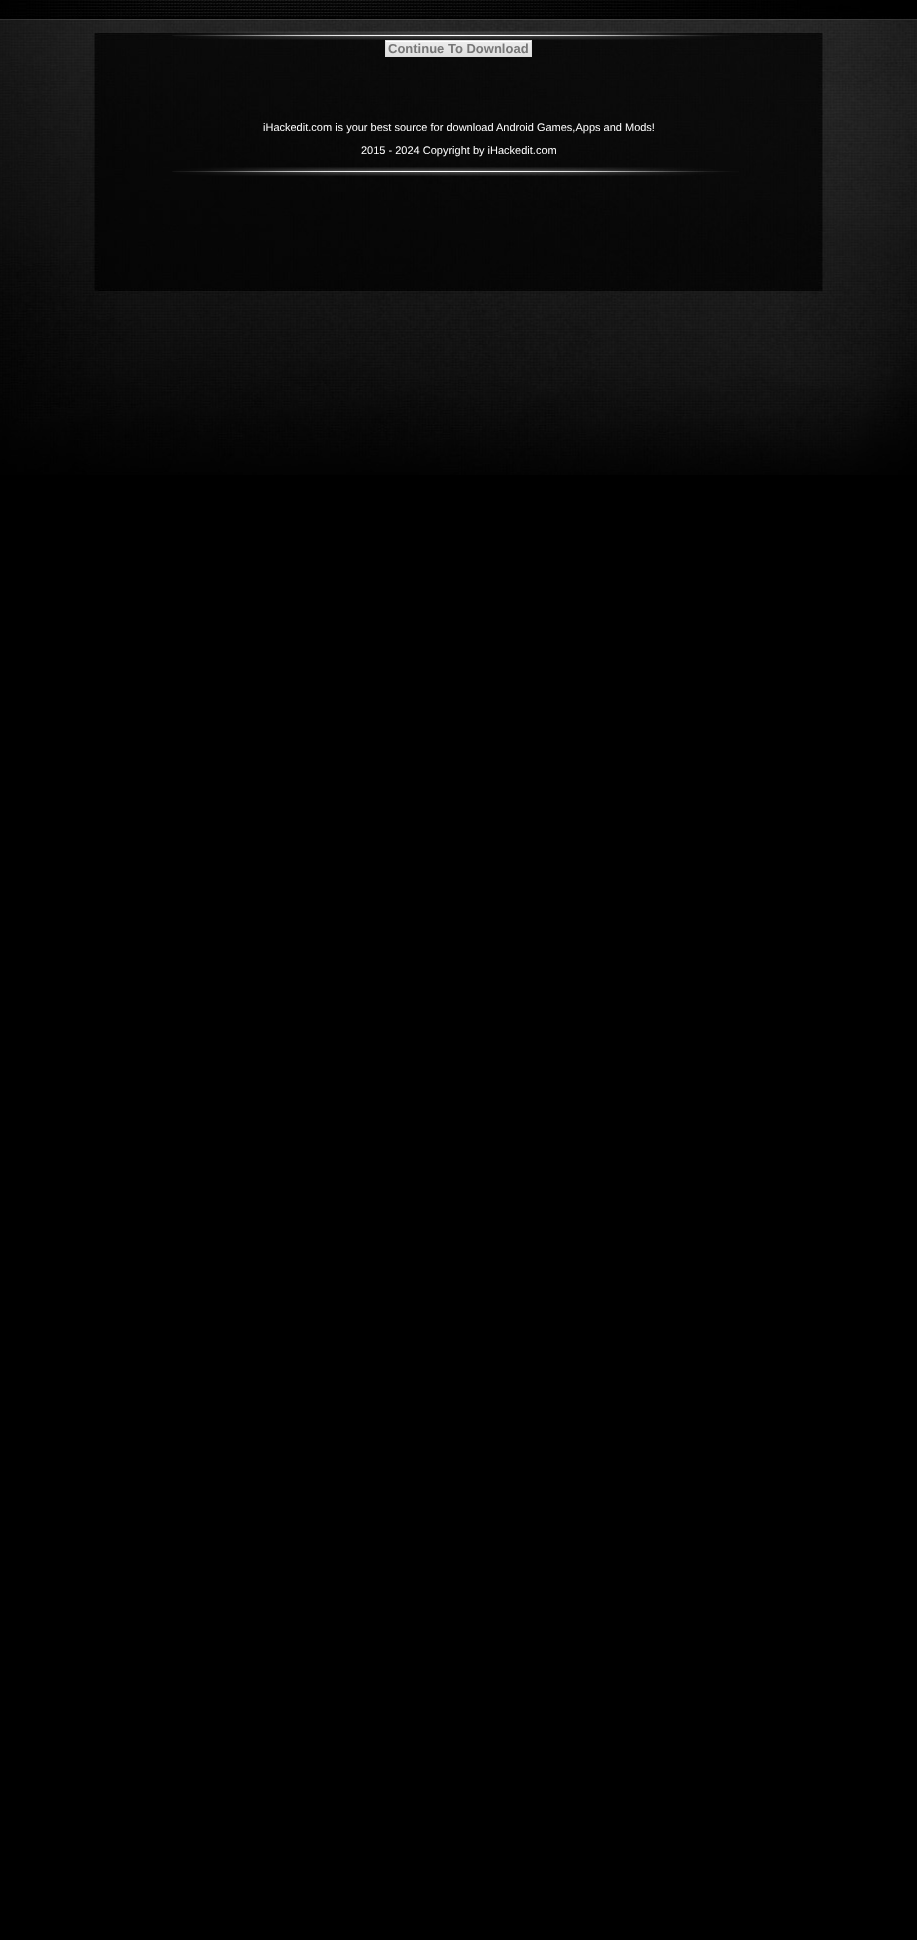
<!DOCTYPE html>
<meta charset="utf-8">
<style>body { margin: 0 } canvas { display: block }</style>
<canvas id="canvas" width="917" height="1940"></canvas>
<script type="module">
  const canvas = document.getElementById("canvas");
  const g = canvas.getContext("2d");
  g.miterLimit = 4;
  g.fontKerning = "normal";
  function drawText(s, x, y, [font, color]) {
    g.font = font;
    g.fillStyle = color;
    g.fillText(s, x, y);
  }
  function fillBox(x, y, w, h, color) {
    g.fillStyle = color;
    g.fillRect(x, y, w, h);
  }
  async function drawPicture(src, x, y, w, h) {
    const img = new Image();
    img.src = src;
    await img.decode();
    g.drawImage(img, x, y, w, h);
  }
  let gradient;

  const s1 = ["bold 13px Liberation Sans", "#777777"];
  const s2 = ["11px Liberation Sans", "#FFFFFF"];

  fillBox(0, 0, 917, 1940, "#000000");
  await drawPicture("pic1.png", 0, 0, 917, 475);
  await drawPicture("pic2.png", 172, 31, 567, 9);
  gradient = g.createLinearGradient(386, 41, 386, 56);
  gradient.addColorStop(0.05, "#EDEDED");
  gradient.addColorStop(1, "#DFDFDF");
  g.fillStyle = gradient;
  g.fillRect(386, 42, 145, 14);
  fillBox(386, 41, 145, 1, "#FFFFFF");
  g.strokeStyle = "#DCDCDC";
  g.strokeRect(385.5, 40.5, 146, 16);
  drawText("Continue To Download", 388, 53, s1);
  drawText("iHackedit.com is your best source for download Android Games,Apps and Mods!", 263, 131, s2);
  drawText("2015 - 2024 Copyright by iHackedit.com", 361, 154, s2);
  await drawPicture("pic3.png", 172, 167, 567, 9);
</script>
